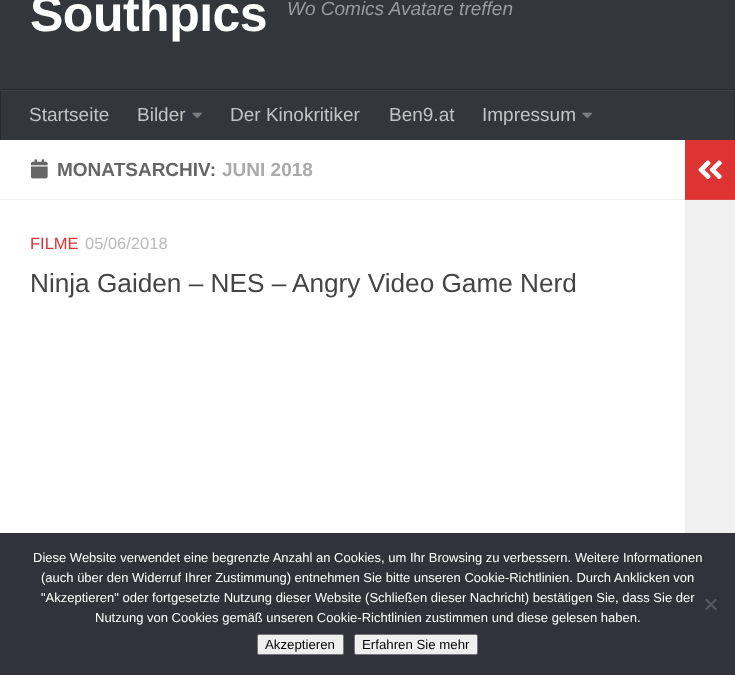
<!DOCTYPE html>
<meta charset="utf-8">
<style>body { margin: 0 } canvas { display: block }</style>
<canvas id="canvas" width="735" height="675"></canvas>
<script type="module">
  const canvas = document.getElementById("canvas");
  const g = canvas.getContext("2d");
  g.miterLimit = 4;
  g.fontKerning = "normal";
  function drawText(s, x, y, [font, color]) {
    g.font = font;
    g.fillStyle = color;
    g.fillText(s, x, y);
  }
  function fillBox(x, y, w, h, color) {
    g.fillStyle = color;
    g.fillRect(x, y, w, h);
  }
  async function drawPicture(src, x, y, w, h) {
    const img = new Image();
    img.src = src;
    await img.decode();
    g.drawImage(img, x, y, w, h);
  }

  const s1 = ["bold 50px Liberation Sans", "#FFFFFF"];
  const s2 = ["italic 19px Liberation Sans", "#999B9D"];
  const s3 = ["19px Liberation Sans", "#C2C3C4"];
  const s4 = ["bold 19px Liberation Sans", "#666666"];
  const s5 = ["bold 19px Liberation Sans", "#AAAAAA"];
  const s6 = ["16.5px Liberation Sans", "#DD3333"];
  const s7 = ["16.5px Liberation Sans", "#BBBBBB"];
  const s8 = ["26.2px Liberation Sans", "#444444"];
  const s9 = ["13px Liberation Sans", "#FFFFFF"];
  const s10 = ["13.25px Liberation Sans", "#000000"];

  fillBox(0, 0, 735, 675, "#33363B");
  fillBox(0, 90, 735, 1, "#3D4045");
  g.letterSpacing = "-0.5px";
  drawText("Southpics", 30, 31, s1);
  g.letterSpacing = "0px";
  drawText("Wo Comics Avatare treffen", 287, 15, s2);
  fillBox(0, 89, 735, 1, "#292B2F");
  fillBox(734, 90, 1, 50, "#292B2F");
  fillBox(734, 90, 1, 1, "#343639");
  fillBox(0, 90, 1, 50, "#292B2F");
  fillBox(0, 90, 1, 1, "#343639");
  drawText("Startseite", 29, 121, s3);
  drawText("Bilder", 137, 121, s3);
  await drawPicture("pic1.png", 192, 112, 10, 6);
  drawText("Der Kinokritiker", 230, 121, s3);
  drawText("Ben9.at", 389, 121, s3);
  drawText("Impressum", 482, 121, s3);
  await drawPicture("pic1.png", 582, 112, 10, 6);
  fillBox(0, 140, 685, 393, "#FFFFFF");
  fillBox(0, 199, 685, 1, "#EEEEEE");
  await drawPicture("pic2.png", 31, 159, 17, 20);
  drawText("MONATSARCHIV:", 57, 176, s4);
  drawText("JUNI 2018", 222, 176, s5);
  drawText("FILME", 30, 249, s6);
  drawText("05/06/2018", 85, 249, s7);
  drawText("Ninja Gaiden – NES – Angry Video Game Nerd", 30, 292, s8);
  fillBox(685, 140, 50, 59, "#DD3333");
  fillBox(685, 199, 50, 1, "#E04747");
  await drawPicture("pic3.png", 698, 160, 24, 20);
  fillBox(685, 200, 50, 333, "#F0F0F0");
  fillBox(0, 533, 735, 142, "#32323A");
  drawText("Diese Website verwendet eine begrenzte Anzahl an Cookies, um Ihr Browsing zu verbessern. Weitere Informationen", 33, 562, s9);
  drawText("(auch über den Widerruf Ihrer Zustimmung) entnehmen Sie bitte unseren Cookie-Richtlinien. Durch Anklicken von", 41, 582, s9);
  drawText("\"Akzeptieren\" oder fortgesetzte Nutzung dieser Website (Schließen dieser Nachricht) bestätigen Sie, dass Sie der", 41, 602, s9);
  drawText("Nutzung von Cookies gemäß unseren Cookie-Richtlinien zustimmen und diese gelesen haben.", 95, 622, s9);
  g.fillStyle = "#59595D";
  g.beginPath();
  g.moveTo(715.5, 598.5);
  g.lineTo(717, 600);
  g.lineTo(706.5, 610.5);
  g.lineTo(705, 609);
  g.closePath();
  g.fill();
  g.beginPath();
  g.moveTo(705, 600);
  g.lineTo(706.5, 598.5);
  g.lineTo(717, 609);
  g.lineTo(715.5, 610.5);
  g.closePath();
  g.fill();
  g.fillStyle = "#EFEFEF";
  g.beginPath();
  g.roundRect(257.5, 634.5, 86, 20, 1.5);
  g.fill();
  g.strokeStyle = "#767676";
  g.stroke();
  drawText("Akzeptieren", 265, 649, s10);
  g.fillStyle = "#EFEFEF";
  g.beginPath();
  g.roundRect(354.5, 634.5, 123, 20, 1.5);
  g.fill();
  g.stroke();
  drawText("Erfahren Sie mehr", 362, 649, s10);
</script>
